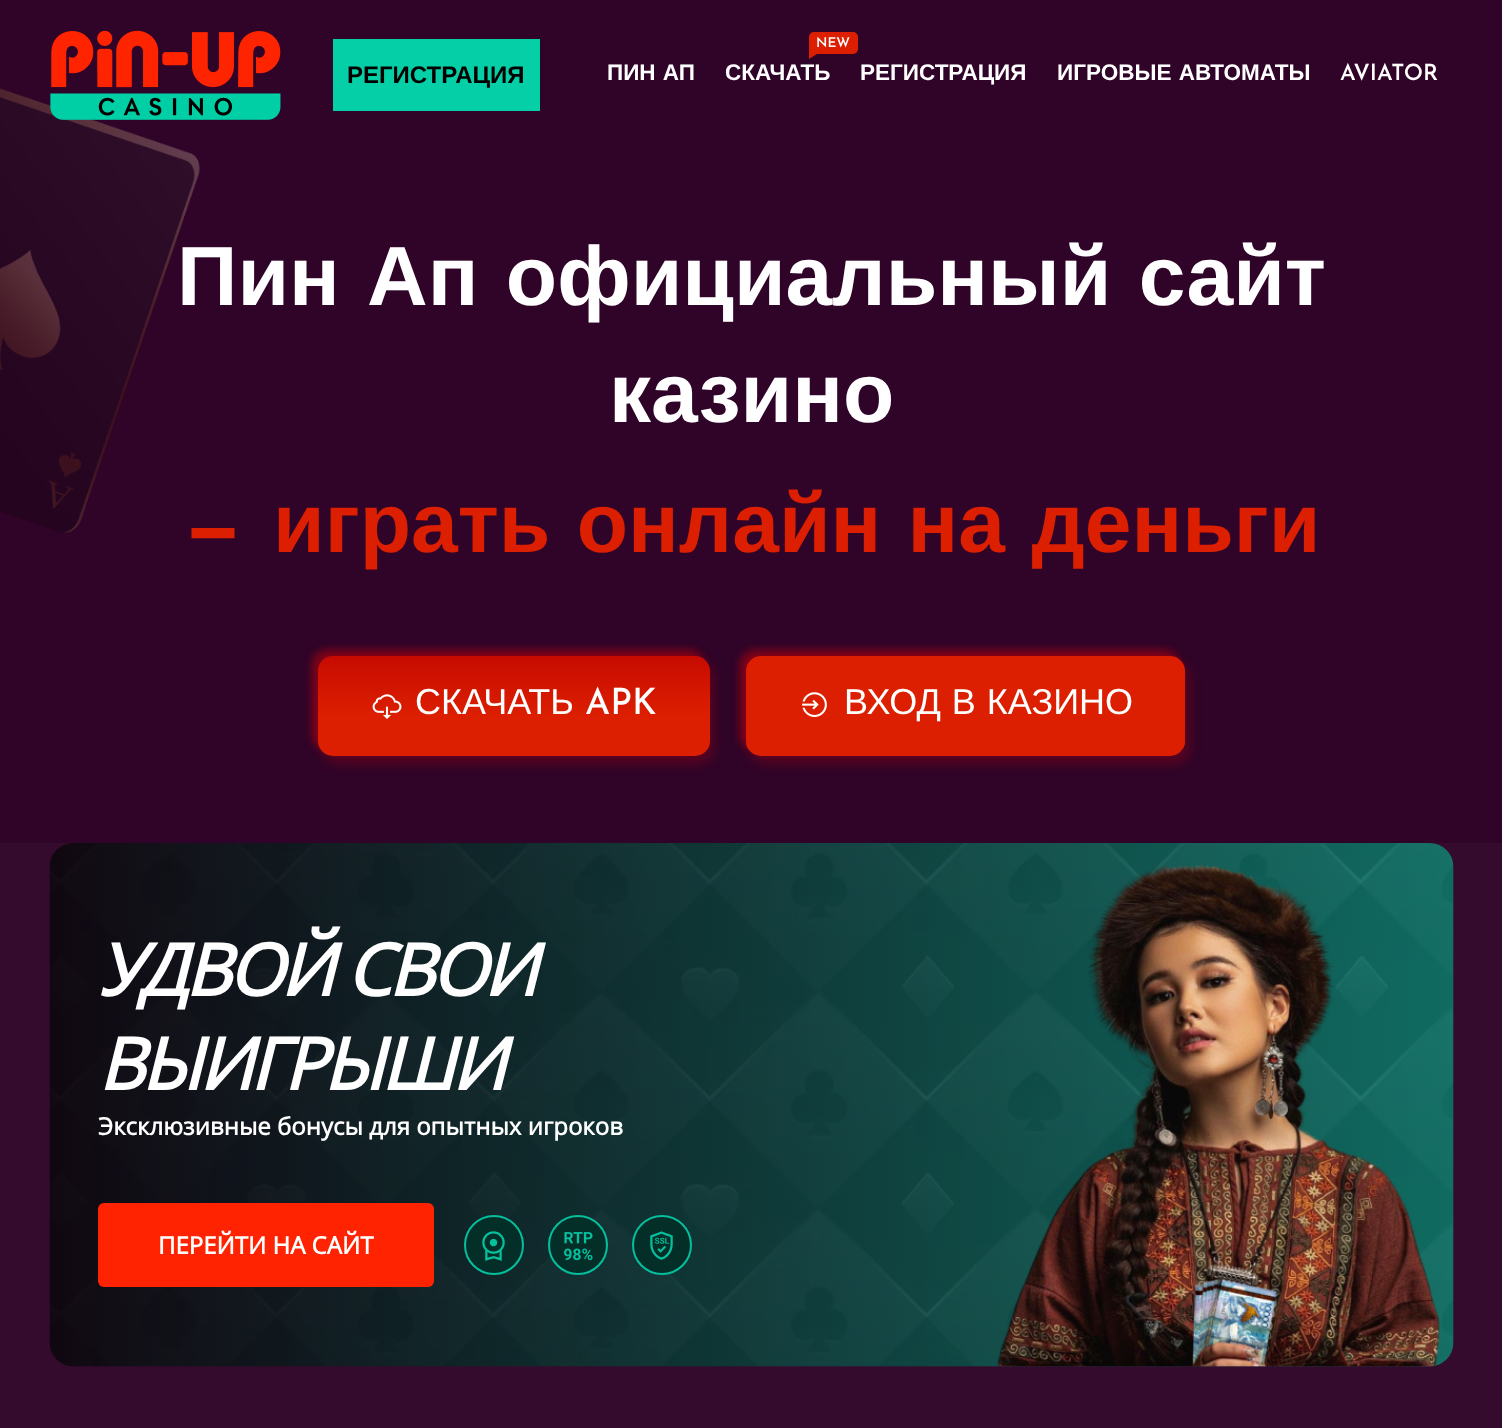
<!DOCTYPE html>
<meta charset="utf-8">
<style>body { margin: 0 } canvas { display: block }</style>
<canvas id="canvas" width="1502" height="1428"></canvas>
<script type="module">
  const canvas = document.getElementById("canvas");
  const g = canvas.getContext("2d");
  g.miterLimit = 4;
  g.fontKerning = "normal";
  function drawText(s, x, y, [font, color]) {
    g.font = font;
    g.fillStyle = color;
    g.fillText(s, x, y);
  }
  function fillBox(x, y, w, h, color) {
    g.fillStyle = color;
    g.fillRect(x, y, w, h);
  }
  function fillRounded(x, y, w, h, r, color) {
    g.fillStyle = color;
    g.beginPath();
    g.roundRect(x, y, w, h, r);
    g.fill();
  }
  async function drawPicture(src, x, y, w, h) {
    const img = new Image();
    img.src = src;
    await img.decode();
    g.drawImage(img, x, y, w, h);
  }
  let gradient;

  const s1 = ["bold 24px Liberation Sans", "#000000"];
  const s2 = ["bold 22.5px Liberation Sans", "#FFFFFF"];
  const s3 = ["600 13.5px Josefin Sans", "#FFFFFF"];
  const s4 = ["600 22.5px Josefin Sans", "#FFFFFF"];
  const s5 = ["bold 84px Liberation Sans", "#FFFFFF"];
  const s6 = ["bold 84px Josefin Sans", "#DC1F00"];
  const s7 = ["bold 84px Liberation Sans", "#DC1F00"];
  const s8 = ["36px Liberation Sans", "#FFFFFF"];
  const s9 = ["500 36px Josefin Sans", "#FFFFFF"];
  const s10 = ["italic bold 72px Open Sans", "#FFFFFF"];
  const s11 = ["bold 24px Open Sans", "#FFFFFF"];

  fillBox(0, 0, 1502, 1428, "#350B2D");
  fillBox(0, 0, 1502, 843, "#2F0428");
  await drawPicture("pic2.png", 0, 88, 200, 445);
  await drawPicture("pic1.png", 50, 30, 231, 90);
  fillBox(333, 39, 207, 72, "#04CFA6");
  drawText("РЕГИСТРАЦИЯ", 347, 83, s1);
  g.wordSpacing = "1px";
  drawText("ПИН АП", 607, 80, s2);
  g.fillStyle = "#DC1F00";
  g.beginPath();
  g.roundRect(809, 32, 49, 22, [5, 5, 5, 0]);
  g.fill();
  g.wordSpacing = "0px";
  drawText("NEW", 816, 47, s3);
  g.fillStyle = "#DC1F00";
  g.beginPath();
  g.moveTo(809, 53);
  g.lineTo(818.5, 53);
  g.lineTo(809, 59);
  g.closePath();
  g.fill();
  drawText("СКАЧАТЬ", 725, 80, s2);
  drawText("РЕГИСТРАЦИЯ", 860, 80, s2);
  g.wordSpacing = "1px";
  drawText("ИГРОВЫЕ АВТОМАТЫ", 1057, 80, s2);
  g.wordSpacing = "0px";
  drawText("AVIATOR", 1340, 80, s4);
  g.wordSpacing = "4px";
  drawText("Пин Ап официальный сайт", 177, 305, s5);
  g.wordSpacing = "0px";
  drawText("казино", 609, 422, s5);
  drawText("—", 183, 552, s6);
  g.wordSpacing = "3px";
  drawText("играть онлайн на деньги", 273, 552, s7);
  g.fillStyle = "rgba(255, 0, 0, 0.2)";
  g.filter = "blur(6px)";
  g.beginPath();
  g.roundRect(323, 663, 391, 101, 15);
  g.fill();
  g.filter = "none";
  g.fillStyle = "rgba(255, 0, 0, 0.4)";
  g.filter = "blur(4.5px)";
  g.beginPath();
  g.roundRect(312, 650, 392, 100, 15);
  g.fill();
  g.filter = "none";
  gradient = g.createLinearGradient(514, 756, 514, 645);
  gradient.addColorStop(0.36, "#DC1F00");
  gradient.addColorStop(1, "#C30700");
  g.fillStyle = gradient;
  g.beginPath();
  g.roundRect(318, 656, 392, 100, 15);
  g.fill();
  await drawPicture("pic3.png", 372, 694, 30, 25);
  g.wordSpacing = "0px";
  drawText("СКАЧАТЬ", 415, 714, s8);
  drawText("APK", 585, 714, s9);
  g.fillStyle = "rgba(255, 0, 0, 0.2)";
  g.filter = "blur(6px)";
  g.beginPath();
  g.roundRect(750, 663, 440, 101, 15);
  g.fill();
  g.filter = "none";
  g.fillStyle = "rgba(255, 0, 0, 0.4)";
  g.filter = "blur(4.5px)";
  g.beginPath();
  g.roundRect(740, 650, 439, 100, 15);
  g.fill();
  g.filter = "none";
  gradient = g.createLinearGradient(965, 756, 965, 645);
  gradient.addColorStop(0.36, "#DC1F00");
  gradient.addColorStop(1, "#C30700");
  g.fillStyle = gradient;
  g.beginPath();
  g.roundRect(746, 656, 439, 100, 15);
  g.fill();
  g.save();
  g.beginPath();
  g.roundRect(746, 656, 439, 100, 15);
  g.clip();
  g.fillStyle = "#DC1F00";
  g.beginPath();
  g.roundRect(746, 656, 439, 93, [15, 15, 0, 0]);
  g.fill();
  g.restore();
  await drawPicture("pic4.png", 802, 692, 25, 25);
  g.wordSpacing = "1px";
  drawText("ВХОД В КАЗИНО", 844, 714, s8);
  await drawPicture("pic5.png", 49, 843, 1405, 524);
  g.letterSpacing = "-3.6px";
  g.wordSpacing = "0px";
  drawText("УДВОЙ СВОИ", 98, 996, s10);
  drawText("ВЫИГРЫШИ", 98, 1090, s10);
  g.letterSpacing = "0px";
  drawText("Эксклюзивные бонусы для опытных игроков", 98, 1135, s11);
  fillRounded(98, 1203, 336, 84, 6, "#FF2301");
  drawText("ПЕРЕЙТИ НА САЙТ", 158, 1254, s11);
  g.fillStyle = "#042E28";
  g.beginPath();
  g.arc(494, 1245, 29, 0, Math.PI * 2);
  g.fill();
  g.strokeStyle = "#05BF9D";
  g.lineWidth = 2;
  g.stroke();
  await drawPicture("pic6.png", 482, 1231, 23, 30);
  g.beginPath();
  g.arc(578, 1245, 29, 0, Math.PI * 2);
  g.fill();
  g.stroke();
  await drawPicture("pic7.png", 564, 1232, 29, 29);
  g.beginPath();
  g.arc(662, 1245, 29, 0, Math.PI * 2);
  g.fill();
  g.stroke();
  await drawPicture("pic8.png", 650, 1231, 23, 29);
  await drawPicture("pic9.png", 997, 864, 443, 503);
</script>
